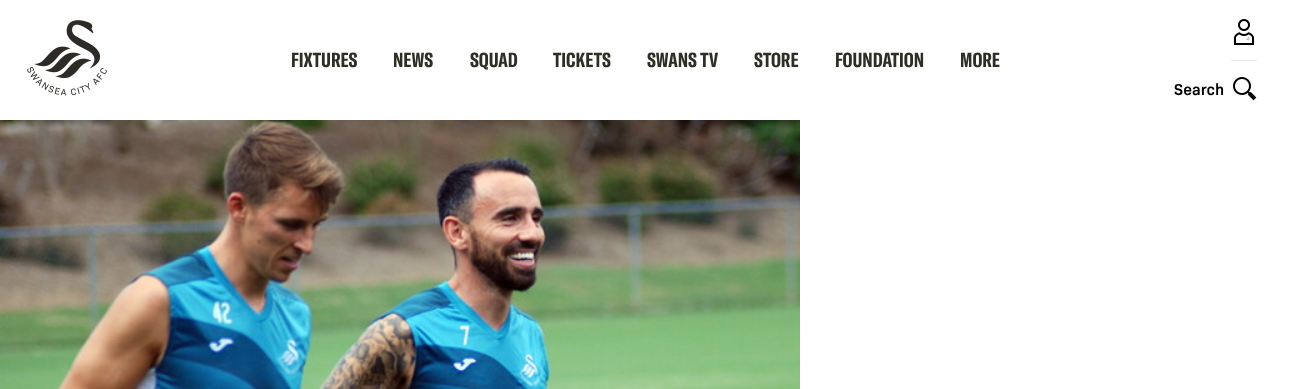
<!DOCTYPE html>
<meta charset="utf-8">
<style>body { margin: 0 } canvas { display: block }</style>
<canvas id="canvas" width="1291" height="389"></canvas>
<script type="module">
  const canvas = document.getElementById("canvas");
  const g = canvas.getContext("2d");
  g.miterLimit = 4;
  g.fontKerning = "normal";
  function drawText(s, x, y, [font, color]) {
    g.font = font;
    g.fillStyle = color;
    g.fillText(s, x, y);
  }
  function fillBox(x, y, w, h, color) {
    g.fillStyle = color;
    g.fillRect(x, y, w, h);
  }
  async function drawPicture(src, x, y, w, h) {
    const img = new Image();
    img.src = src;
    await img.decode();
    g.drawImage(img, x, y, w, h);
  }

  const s1 = ["bold 20px GT America", "#2E2E25"];
  const s2 = ["600 16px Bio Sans", "#000000"];

  fillBox(0, 0, 1291, 389, "#FFFFFF");
  drawText("FIXTURES", 291, 67, s1);
  drawText("NEWS", 393, 67, s1);
  drawText("SQUAD", 470, 67, s1);
  drawText("TICKETS", 553, 67, s1);
  drawText("SWANS TV", 647, 67, s1);
  drawText("STORE", 754, 67, s1);
  drawText("FOUNDATION", 835, 67, s1);
  drawText("MORE", 960, 67, s1);
  await drawPicture("pic1.png", 27, 20, 80, 76);
  await drawPicture("pic2.png", 1234, 19, 20, 26);
  fillBox(1231, 60, 26, 1, "#E6E6E6");
  drawText("Search", 1174, 95, s2);
  await drawPicture("pic3.png", 1233, 77, 24, 24);
  await drawPicture("pic4.png", 0, 120, 800, 269);
</script>
